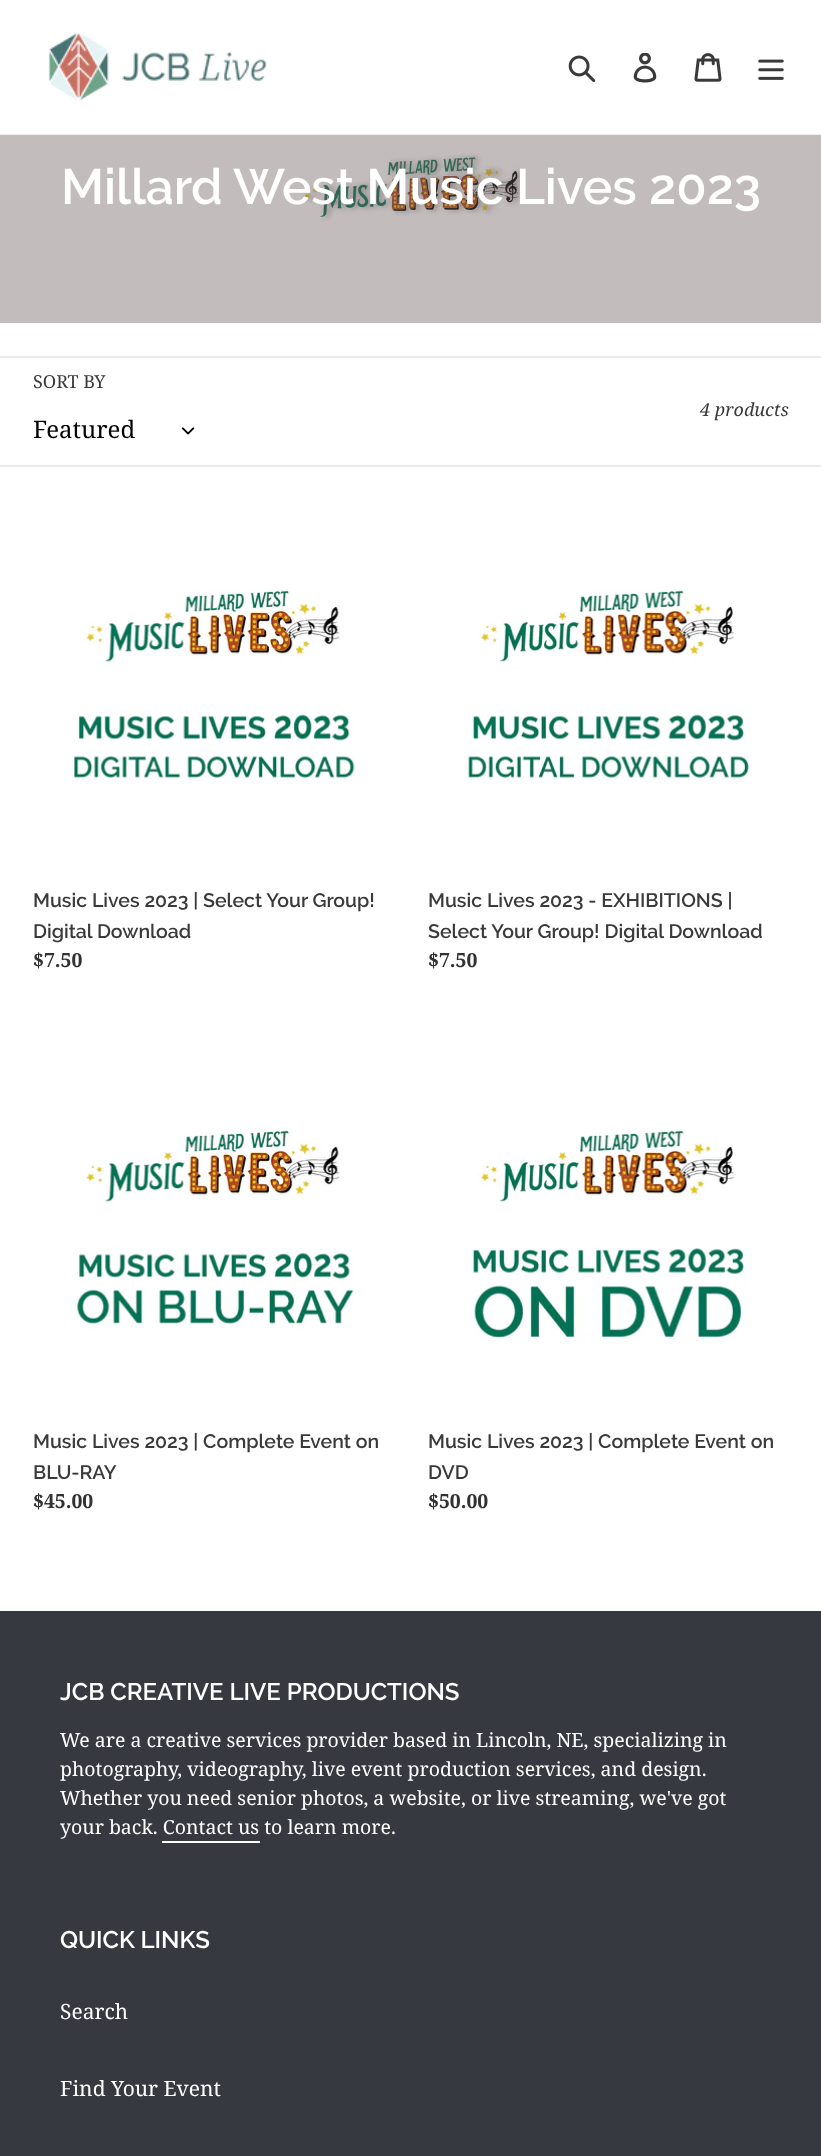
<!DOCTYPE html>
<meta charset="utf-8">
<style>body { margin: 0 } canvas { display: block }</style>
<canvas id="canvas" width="821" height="2156"></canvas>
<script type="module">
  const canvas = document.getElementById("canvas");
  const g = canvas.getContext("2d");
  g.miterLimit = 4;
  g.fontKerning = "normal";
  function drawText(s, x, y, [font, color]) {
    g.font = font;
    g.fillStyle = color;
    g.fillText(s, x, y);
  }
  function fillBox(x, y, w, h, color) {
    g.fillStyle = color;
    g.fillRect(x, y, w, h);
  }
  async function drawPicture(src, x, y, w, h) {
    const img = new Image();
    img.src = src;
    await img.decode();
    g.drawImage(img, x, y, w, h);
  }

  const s1 = ["600 49.5px Raleway", "#FFFFFF"];
  const s2 = ["18px Noto Serif", "#3A3A3A"];
  const s3 = ["24px Noto Serif", "#000000"];
  const s4 = ["italic 18px Noto Serif", "#3A3A3A"];
  const s5 = ["600 19.5px Raleway", "#3A3A3A"];
  const s6 = ["bold 19.5px Noto Serif", "#333232"];
  const s7 = ["600 24px Raleway", "#FFFFFF"];
  const s8 = ["19.5px Noto Serif", "#FFFFFF"];
  const s9 = ["21px Noto Serif", "#FFFFFF"];

  fillBox(0, 0, 821, 2156, "#FFFFFF");
  fillBox(0, 222, 821, 101, "#C3BCBC");
  fillBox(0, 134, 821, 1, "#EBEBEB");
  await drawPicture("pic1.png", 48, 33, 219, 68);
  await drawPicture("pic2.png", 568, 55, 28, 28);
  await drawPicture("pic3.png", 633, 53, 24, 30);
  await drawPicture("pic4.png", 694, 53, 28, 29);
  await drawPicture("pic5.png", 758, 59, 26, 21);
  await drawPicture("pic6.png", 0, 135, 821, 87);
  drawText("Millard West Music Lives 2023", 61, 204, s1);
  fillBox(0, 356, 821, 2, "#EBEBEB");
  fillBox(0, 465, 821, 2, "#EBEBEB");
  drawText("SORT BY", 33, 388, s2);
  drawText("Featured", 33, 438, s3);
  await drawPicture("pic7.png", 182, 427, 13, 8);
  drawText("4 products", 700, 416, s4);
  await drawPicture("pic8.png", 72, 588, 283, 193);
  drawText("Music Lives 2023 | Select Your Group!", 33, 907, s5);
  drawText("Digital Download", 33, 938, s5);
  drawText("$7.50", 33, 967, s6);
  await drawPicture("pic9.png", 467, 588, 283, 193);
  drawText("Music Lives 2023 - EXHIBITIONS |", 428, 907, s5);
  drawText("Select Your Group! Digital Download", 428, 938, s5);
  drawText("$7.50", 428, 967, s6);
  await drawPicture("pic10.png", 74, 1128, 280, 201);
  drawText("Music Lives 2023 | Complete Event on", 33, 1448, s5);
  drawText("BLU-RAY", 33, 1479, s5);
  drawText("$45.00", 33, 1508, s6);
  await drawPicture("pic11.png", 470, 1128, 279, 216);
  drawText("Music Lives 2023 | Complete Event on", 428, 1448, s5);
  drawText("DVD", 428, 1479, s5);
  drawText("$50.00", 428, 1508, s6);
  fillBox(0, 1611, 821, 545, "#363A40");
  drawText("JCB CREATIVE LIVE PRODUCTIONS", 60, 1700, s7);
  drawText("We are a creative services provider based in Lincoln, NE, specializing in", 60, 1747, s8);
  drawText("photography, videography, live event production services, and design.", 60, 1776, s8);
  drawText("Whether you need senior photos, a website, or live streaming, we've got", 60, 1805, s8);
  drawText("your back. Contact us to learn more.", 60, 1834, s8);
  fillBox(162, 1841, 98, 2, "#FFFFFF");
  drawText("QUICK LINKS", 60, 1948, s7);
  drawText("Search", 60, 2019, s9);
  drawText("Find Your Event", 60, 2096, s9);
</script>
